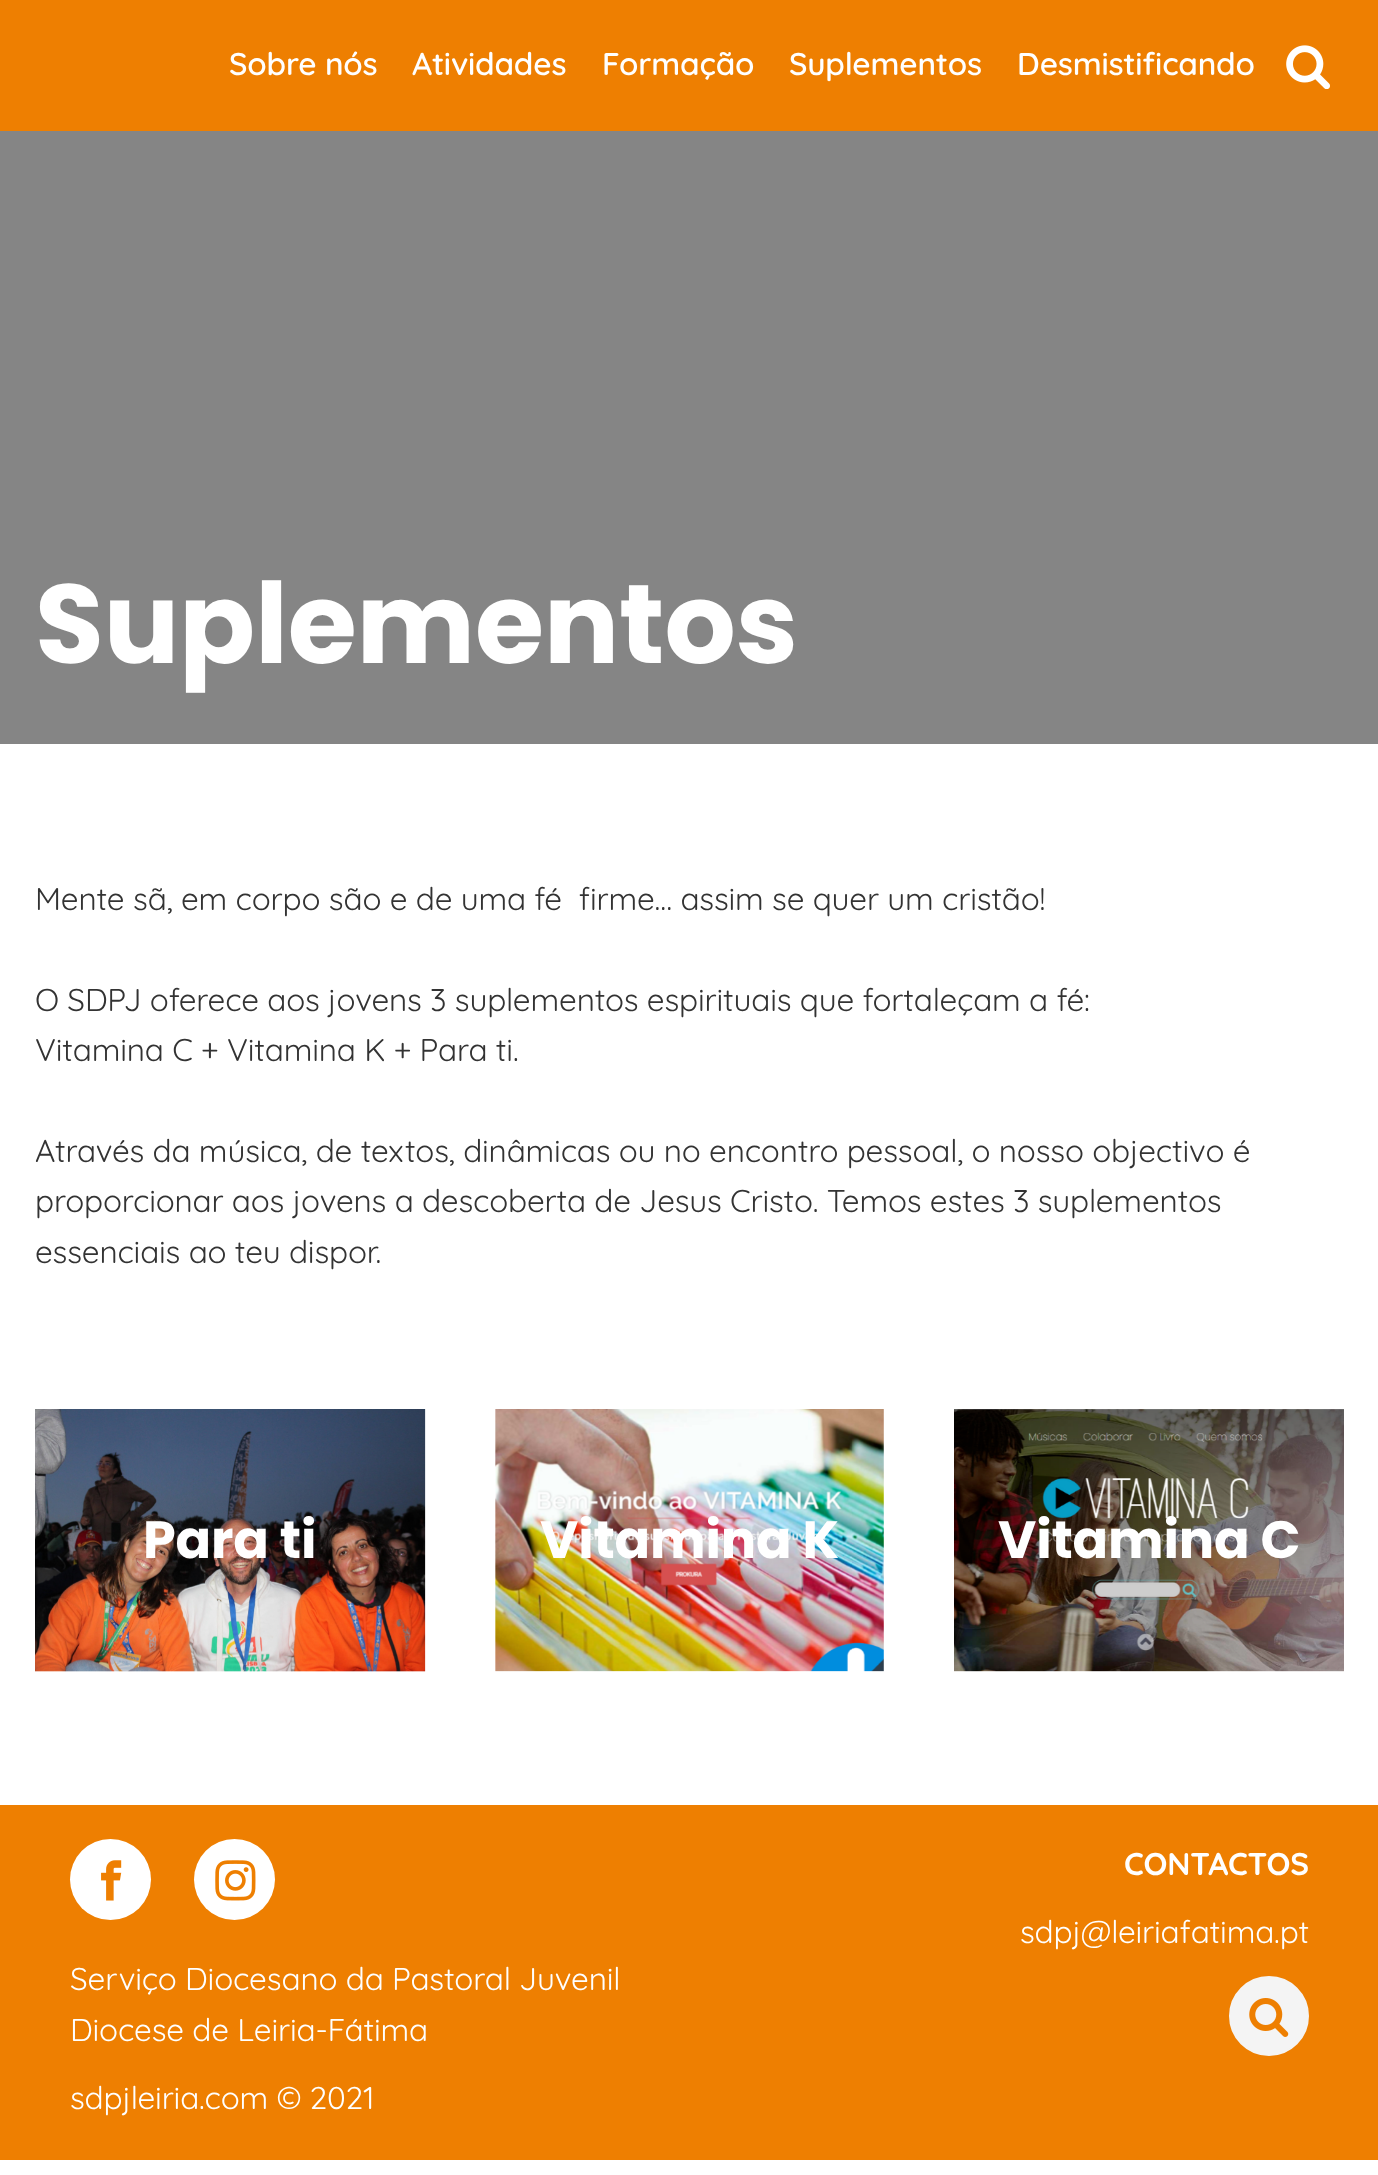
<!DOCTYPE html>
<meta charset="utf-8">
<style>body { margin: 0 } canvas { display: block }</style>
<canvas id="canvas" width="1378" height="2175"></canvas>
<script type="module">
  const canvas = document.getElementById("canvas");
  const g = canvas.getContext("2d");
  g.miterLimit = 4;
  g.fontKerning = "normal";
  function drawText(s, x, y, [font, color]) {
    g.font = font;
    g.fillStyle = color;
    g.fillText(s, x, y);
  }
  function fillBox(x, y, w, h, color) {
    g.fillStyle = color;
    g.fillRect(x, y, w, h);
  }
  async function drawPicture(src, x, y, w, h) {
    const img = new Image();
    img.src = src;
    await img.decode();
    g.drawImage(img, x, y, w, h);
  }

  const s1 = ["600 31.5px Quicksand", "#FFFFFF"];
  const s2 = ["bold 112px Poppins", "#FFFFFF"];
  const s3 = ["31.5px Quicksand", "#333333"];
  const s4 = ["bold 52.5px Poppins", "#FFFFFF"];
  const s5 = ["bold 31.5px Quicksand", "#FFFFFF"];
  const s6 = ["31.5px Quicksand", "#FFFFFF"];

  fillBox(0, 0, 1378, 2175, "#FFFFFF");
  fillBox(0, 0, 1378, 131, "#EE7F01");
  g.letterSpacing = "-0.18px";
  drawText("Sobre nós", 229, 75, s1);
  drawText("Atividades", 412, 75, s1);
  drawText("Formação", 602, 75, s1);
  drawText("Suplementos", 789, 75, s1);
  drawText("Desmistificando", 1017, 75, s1);
  await drawPicture("pic1.png", 1286, 45, 44, 44);
  fillBox(0, 131, 1378, 613, "#858585");
  drawText("Suplementos", 35, 663, s2);
  drawText("Mente sã, em corpo são e de uma fé  firme… assim se quer um cristão!", 35, 910, s3);
  drawText("O SDPJ oferece aos jovens 3 suplementos espirituais que fortaleçam a fé:", 35, 1011, s3);
  drawText("Vitamina C + Vitamina K + Para ti.", 35, 1061, s3);
  drawText("Através da música, de textos, dinâmicas ou no encontro pessoal, o nosso objectivo é", 35, 1162, s3);
  drawText("proporcionar aos jovens a descoberta de Jesus Cristo. Temos estes 3 suplementos", 35, 1212, s3);
  drawText("essenciais ao teu dispor.", 35, 1263, s3);
  await drawPicture("pic2.png", 35, 1409, 391, 263);
  drawText("Para ti", 143, 1558, s4);
  await drawPicture("pic3.png", 495, 1409, 389, 263);
  drawText("Vitamina K", 540, 1558, s4);
  await drawPicture("pic4.png", 954, 1409, 390, 263);
  drawText("Vitamina C", 998, 1558, s4);
  fillBox(0, 1805, 1378, 355, "#EE7F01");
  drawText("CONTACTOS", 1124, 1875, s5);
  drawText("sdpj@leiriafatima.pt", 1020, 1943, s6);
  g.fillStyle = "#F4F4F4";
  g.beginPath();
  g.arc(1269, 2016, 39, 0, Math.PI * 2);
  g.fill();
  g.strokeStyle = "#F4F4F4";
  g.lineWidth = 2;
  g.stroke();
  await drawPicture("pic5.png", 1249, 1998, 40, 39);
  g.fillStyle = "#FFFFFF";
  g.beginPath();
  g.arc(110.5, 1879.5, 40.5, 0, Math.PI * 2);
  g.fill();
  await drawPicture("pic6.png", 101, 1860, 21, 41);
  g.beginPath();
  g.arc(234.5, 1879.5, 40.5, 0, Math.PI * 2);
  g.fill();
  await drawPicture("pic7.png", 215, 1860, 41, 41);
  drawText("Serviço Diocesano da Pastoral Juvenil", 70, 1990, s6);
  drawText("Diocese de Leiria-Fátima", 70, 2041, s6);
  drawText("sdpjleiria.com © 2021", 70, 2109, s6);
</script>
